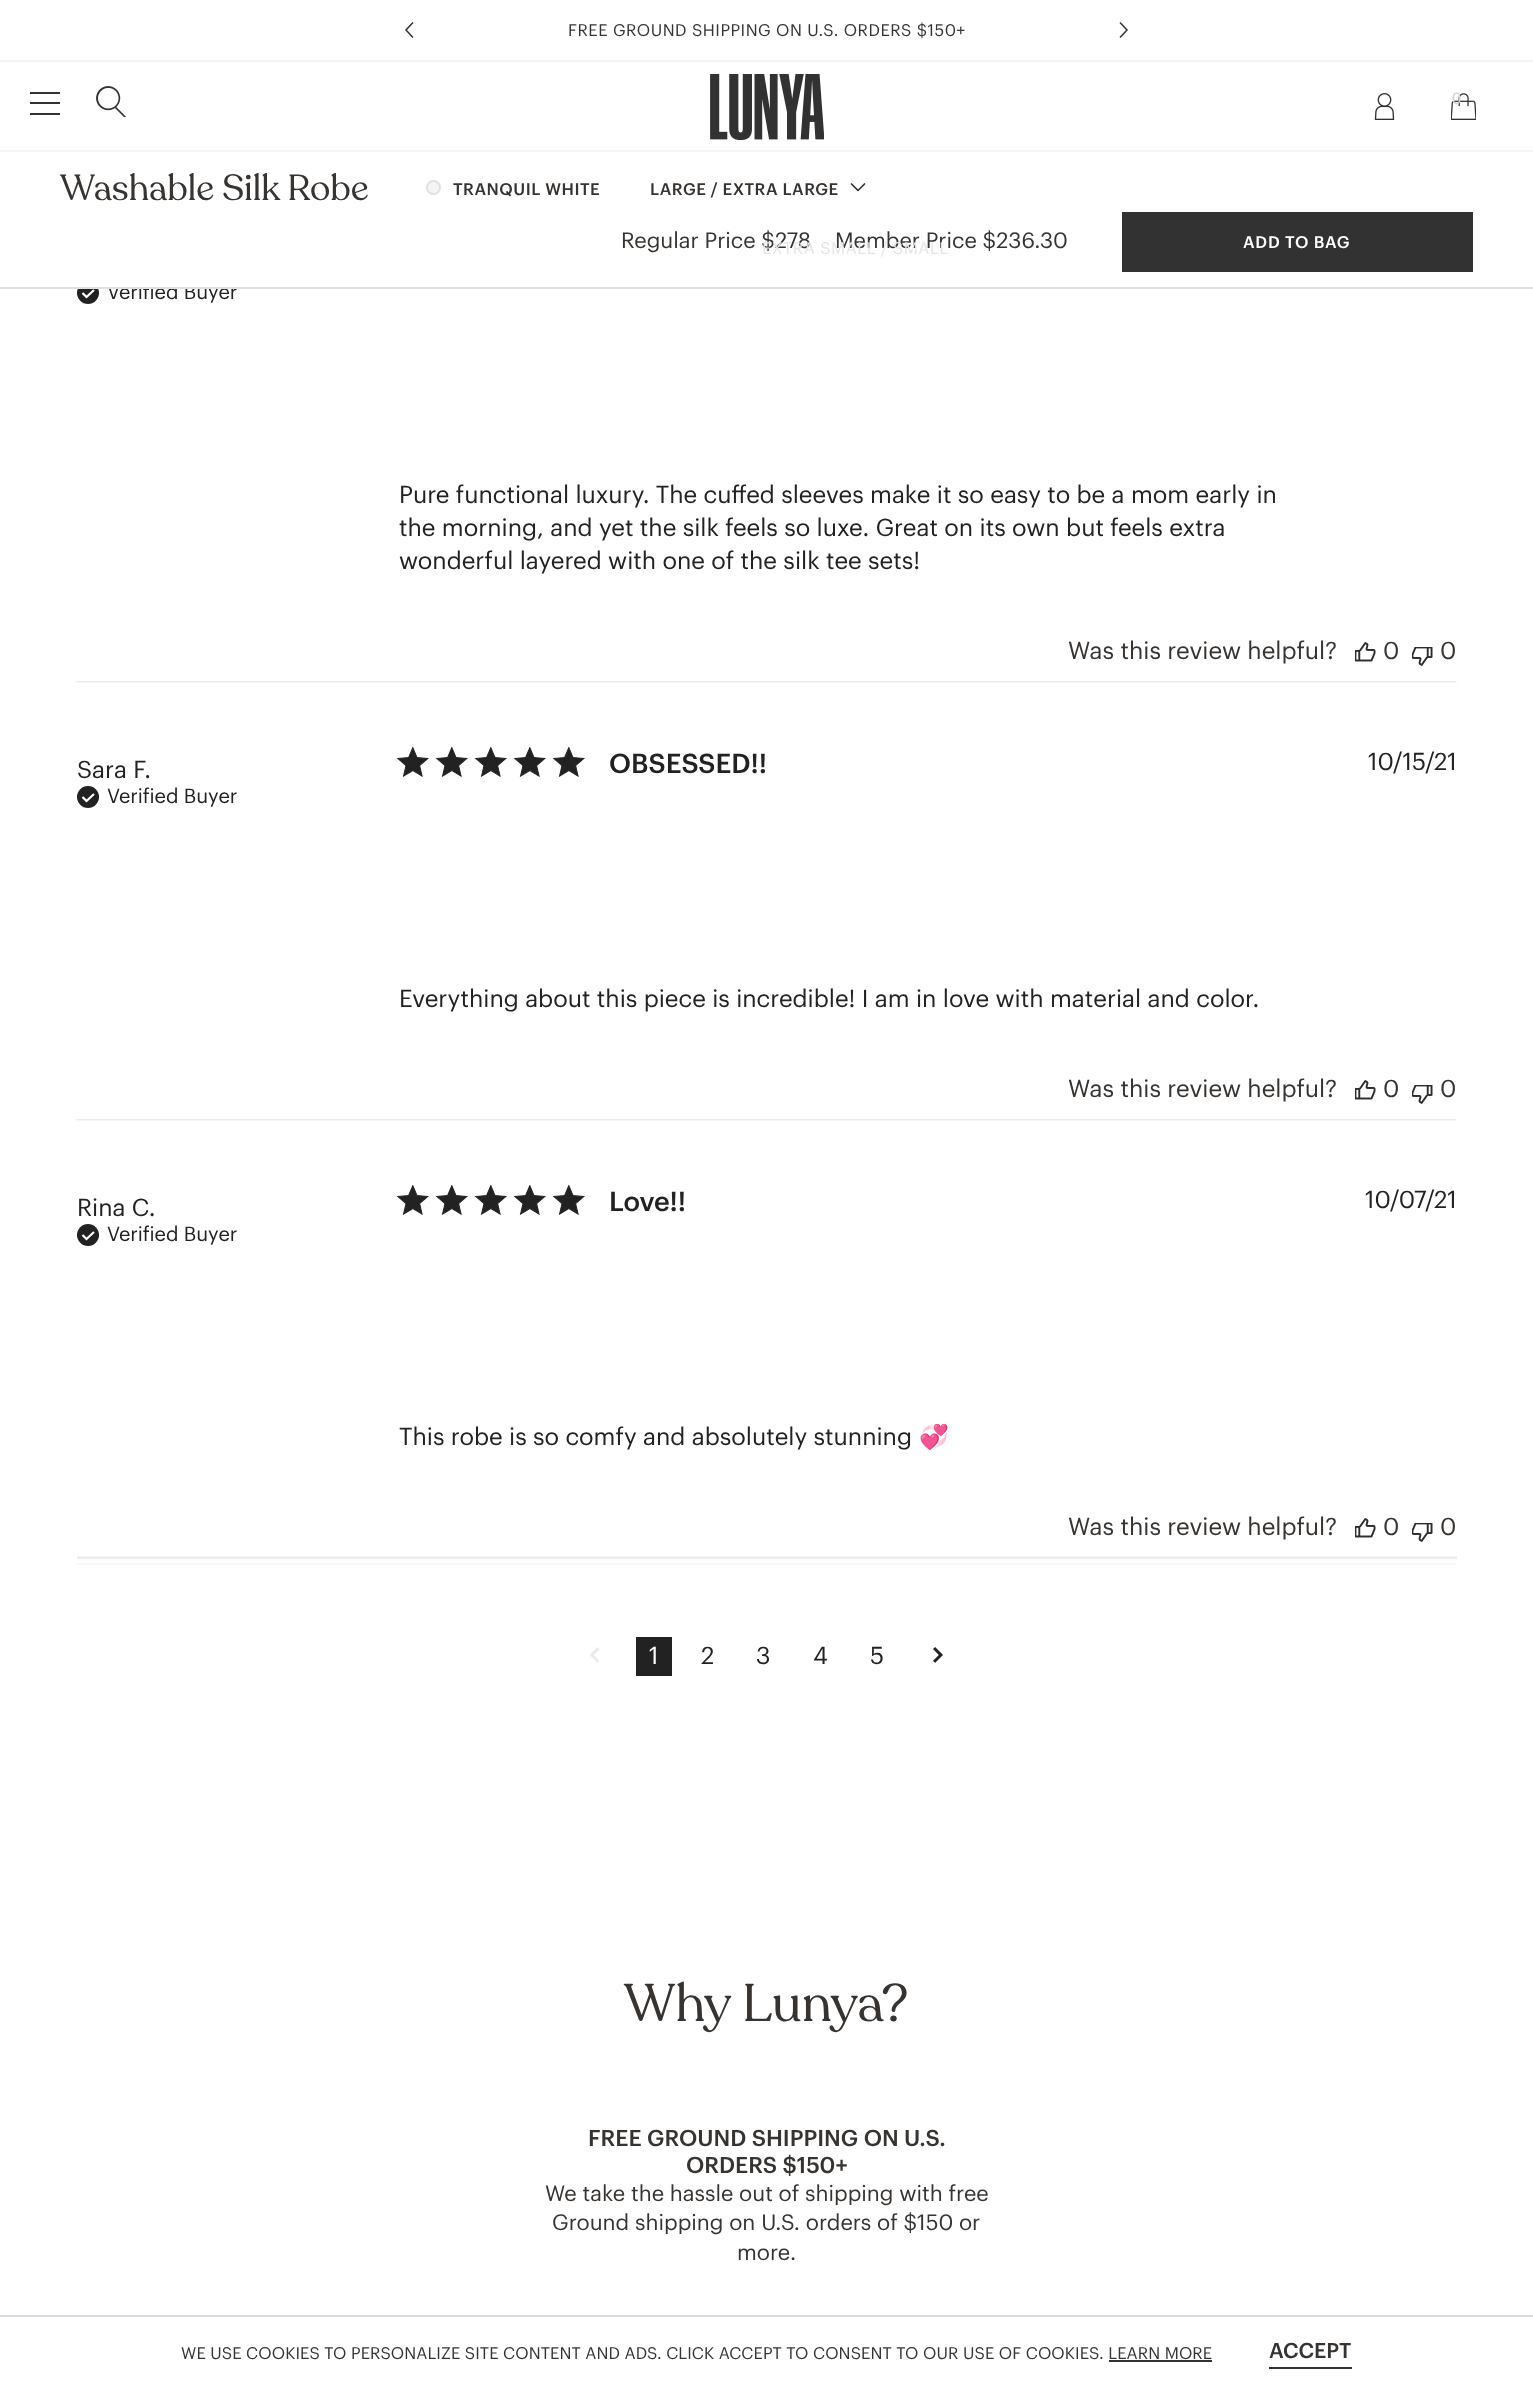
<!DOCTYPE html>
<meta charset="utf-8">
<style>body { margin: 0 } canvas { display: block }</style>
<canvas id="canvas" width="1533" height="2393"></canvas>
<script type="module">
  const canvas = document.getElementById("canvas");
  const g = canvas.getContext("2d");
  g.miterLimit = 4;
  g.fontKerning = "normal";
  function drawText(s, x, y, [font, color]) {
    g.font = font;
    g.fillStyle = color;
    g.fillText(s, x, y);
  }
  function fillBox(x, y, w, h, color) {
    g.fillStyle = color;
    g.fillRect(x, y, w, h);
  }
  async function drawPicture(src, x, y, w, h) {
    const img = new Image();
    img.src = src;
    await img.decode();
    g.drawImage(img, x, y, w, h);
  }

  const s1 = ["16.5px 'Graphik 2'", "#373330"];
  const s2 = ["16.5px Liberation Sans", "#D1D1D1"];
  const s3 = ["20px Graphik", "#222222"];
  const s4 = ["36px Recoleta", "#373330"];
  const s5 = ["500 16.5px 'Graphik 2'", "#373330"];
  const s6 = ["21.75px 'Graphik 2'", "#373330"];
  const s7 = ["16.5px 'Graphik 2'", "#E5E5E5"];
  const s8 = ["500 16.5px 'Graphik 2'", "#FFFFFF"];
  const s9 = ["24px Graphik", "#222222"];
  const s10 = ["24px Graphik", "#373330"];
  const s11 = ["500 27px Graphik", "#222222"];
  const s12 = ["24px Noto Color Emoji", "#222222"];
  const s13 = ["24px Graphik", "#FFFFFF"];
  const s14 = ["52.5px Recoleta", "#373330"];
  const s15 = ["500 22.5px 'Graphik 2'", "#373330"];
  const s16 = ["500 21px 'Graphik 2'", "#373330"];

  fillBox(0, 0, 1533, 2393, "#FFFFFF");
  fillBox(0, 60, 1533, 2, "#F4F5F6");
  g.beginPath();
  g.moveTo(413, 22.5);
  g.lineTo(406, 30);
  g.lineTo(413, 37.5);
  g.strokeStyle = "#323232";
  g.lineWidth = 1.5;
  g.stroke();
  g.letterSpacing = "0.5px";
  drawText("FREE GROUND SHIPPING ON U.S. ORDERS $150+", 568, 36, s1);
  g.beginPath();
  g.moveTo(1120, 22.5);
  g.lineTo(1127, 30);
  g.lineTo(1120, 37.5);
  g.stroke();
  fillBox(30, 92, 30, 2, "#323232");
  fillBox(30, 102, 30, 2, "#323232");
  fillBox(30, 113, 30, 2, "#323232");
  await drawPicture("pic1.png", 96, 86, 30, 31);
  await drawPicture("pic2.png", 710, 74, 114, 66);
  await drawPicture("pic3.png", 1374, 93, 21, 27);
  await drawPicture("pic4.png", 1451, 93, 25, 27);
  g.letterSpacing = "0px";
  drawText("0", 1452, 104, s2);
  fillBox(0, 150, 1533, 2, "#F4F5F6");
  g.fillStyle = "#222222";
  g.beginPath();
  g.arc(88, 293, 11, 0, Math.PI * 2);
  g.fill();
  drawText("Verified Buyer", 107, 299, s3);
  fillBox(78, 282, 116, 5, "#FFFFFF");
  fillBox(0, 287, 1533, 2, "#E0E1E2");
  drawText("Washable Silk Robe", 60, 200, s4);
  await drawPicture("pic5.png", 426, 180, 15, 15);
  g.beginPath();
  g.arc(433.5, 187.5, 6.5, 0, Math.PI * 2);
  g.strokeStyle = "#E0E1E2";
  g.lineWidth = 2;
  g.stroke();
  g.letterSpacing = "0.5px";
  drawText("TRANQUIL WHITE", 453, 195, s5);
  drawText("LARGE / EXTRA LARGE", 650, 195, s5);
  g.beginPath();
  g.moveTo(851.5, 184);
  g.lineTo(858, 190.5);
  g.lineTo(864.5, 184);
  g.strokeStyle = "#323232";
  g.lineWidth = 1.7;
  g.lineCap = "round";
  g.lineJoin = "round";
  g.stroke();
  g.letterSpacing = "0px";
  drawText("Regular Price $278", 621, 248, s6);
  drawText("Member Price $236.30", 835, 248, s6);
  g.letterSpacing = "0.5px";
  drawText("EXTRA SMALL / SMALL", 762, 254, s7);
  fillBox(1122, 212, 351, 60, "#323232");
  g.letterSpacing = "0.75px";
  drawText("ADD TO BAG", 1243, 248, s8);
  g.beginPath();
  g.moveTo(82.5, 293);
  g.lineTo(86.5, 297);
  g.lineTo(94, 290);
  g.strokeStyle = "#FFFFFF";
  g.lineWidth = 2.2;
  g.lineCap = "butt";
  g.lineJoin = "miter";
  g.stroke();
  g.letterSpacing = "0px";
  drawText("Pure functional luxury. The cuffed sleeves make it so easy to be a mom early in", 399, 503, s9);
  drawText("the morning, and yet the silk feels so luxe. Great on its own but feels extra", 399, 536, s9);
  drawText("wonderful layered with one of the silk tee sets!", 399, 569, s9);
  drawText("Was this review helpful?", 1068, 659, s10);
  await drawPicture("pic6.png", 1355, 642, 21, 20);
  drawText("0", 1383, 659, s10);
  await drawPicture("pic7.png", 1412, 647, 21, 19);
  drawText("0", 1440, 659, s10);
  await drawPicture("pic8.png", 76, 681, 1381, 2);
  drawText("Sara F.", 77, 778, s9);
  g.beginPath();
  g.arc(88, 797, 11, 0, Math.PI * 2);
  g.fill();
  g.beginPath();
  g.moveTo(82.5, 797);
  g.lineTo(86.5, 801);
  g.lineTo(94, 794);
  g.stroke();
  drawText("Verified Buyer", 107, 803, s3);
  await drawPicture("pic9.png", 396, 747, 33, 30);
  await drawPicture("pic9.png", 435, 747, 33, 30);
  await drawPicture("pic9.png", 474, 747, 33, 30);
  await drawPicture("pic9.png", 513, 747, 33, 30);
  await drawPicture("pic9.png", 552, 747, 33, 30);
  drawText("OBSESSED!!", 609, 773, s11);
  drawText("Everything about this piece is incredible! I am in love with material and color.", 399, 1007, s9);
  drawText("10/15/21", 1368, 770, s9);
  drawText("Was this review helpful?", 1068, 1097, s10);
  await drawPicture("pic6.png", 1355, 1080, 21, 20);
  drawText("0", 1383, 1097, s10);
  await drawPicture("pic7.png", 1412, 1085, 21, 19);
  drawText("0", 1440, 1097, s10);
  await drawPicture("pic8.png", 76, 1119, 1381, 2);
  drawText("Rina C.", 77, 1216, s9);
  g.beginPath();
  g.arc(88, 1235, 11, 0, Math.PI * 2);
  g.fill();
  g.beginPath();
  g.moveTo(82.5, 1235);
  g.lineTo(86.5, 1239);
  g.lineTo(94, 1232);
  g.stroke();
  drawText("Verified Buyer", 107, 1241, s3);
  await drawPicture("pic9.png", 396, 1185, 33, 30);
  await drawPicture("pic9.png", 435, 1185, 33, 30);
  await drawPicture("pic9.png", 474, 1185, 33, 30);
  await drawPicture("pic9.png", 513, 1185, 33, 30);
  await drawPicture("pic9.png", 552, 1185, 33, 30);
  drawText("Love!!", 609, 1211, s11);
  drawText("This robe is so comfy and absolutely stunning", 399, 1445, s9);
  drawText("💞", 919, 1445, s12);
  drawText("10/07/21", 1365, 1208, s9);
  drawText("Was this review helpful?", 1068, 1535, s10);
  await drawPicture("pic6.png", 1355, 1518, 21, 20);
  drawText("0", 1383, 1535, s10);
  await drawPicture("pic7.png", 1412, 1523, 21, 19);
  drawText("0", 1440, 1535, s10);
  await drawPicture("pic10.png", 77, 1556, 1380, 9);
  await drawPicture("pic11.png", 590, 1647, 10, 16);
  fillBox(636, 1637, 36, 39, "#222222");
  drawText("1", 649, 1664, s13);
  drawText("2", 701, 1664, s9);
  drawText("3", 756, 1664, s9);
  drawText("4", 813, 1664, s9);
  drawText("5", 870, 1664, s9);
  await drawPicture("pic12.png", 933, 1647, 10, 16);
  drawText("Why Lunya?", 624, 2021, s14);
  drawText("FREE GROUND SHIPPING ON U.S.", 588, 2146, s15);
  drawText("ORDERS $150+", 686, 2173, s15);
  drawText("We take the hassle out of shipping with free", 545, 2201, s6);
  drawText("Ground shipping on U.S. orders of $150 or", 552, 2230, s6);
  drawText("more.", 737, 2260, s6);
  fillBox(0, 2315, 1533, 2, "#DCDCDC");
  g.letterSpacing = "0.08px";
  drawText("WE USE COOKIES TO PERSONALIZE SITE CONTENT AND ADS. CLICK ACCEPT TO CONSENT TO OUR USE OF COOKIES. LEARN MORE", 181, 2359, s1);
  fillBox(1109, 2360, 103, 2, "#323232");
  g.letterSpacing = "0px";
  drawText("ACCEPT", 1269, 2358, s16);
  fillBox(1269, 2367, 83, 2, "#323232");
</script>
